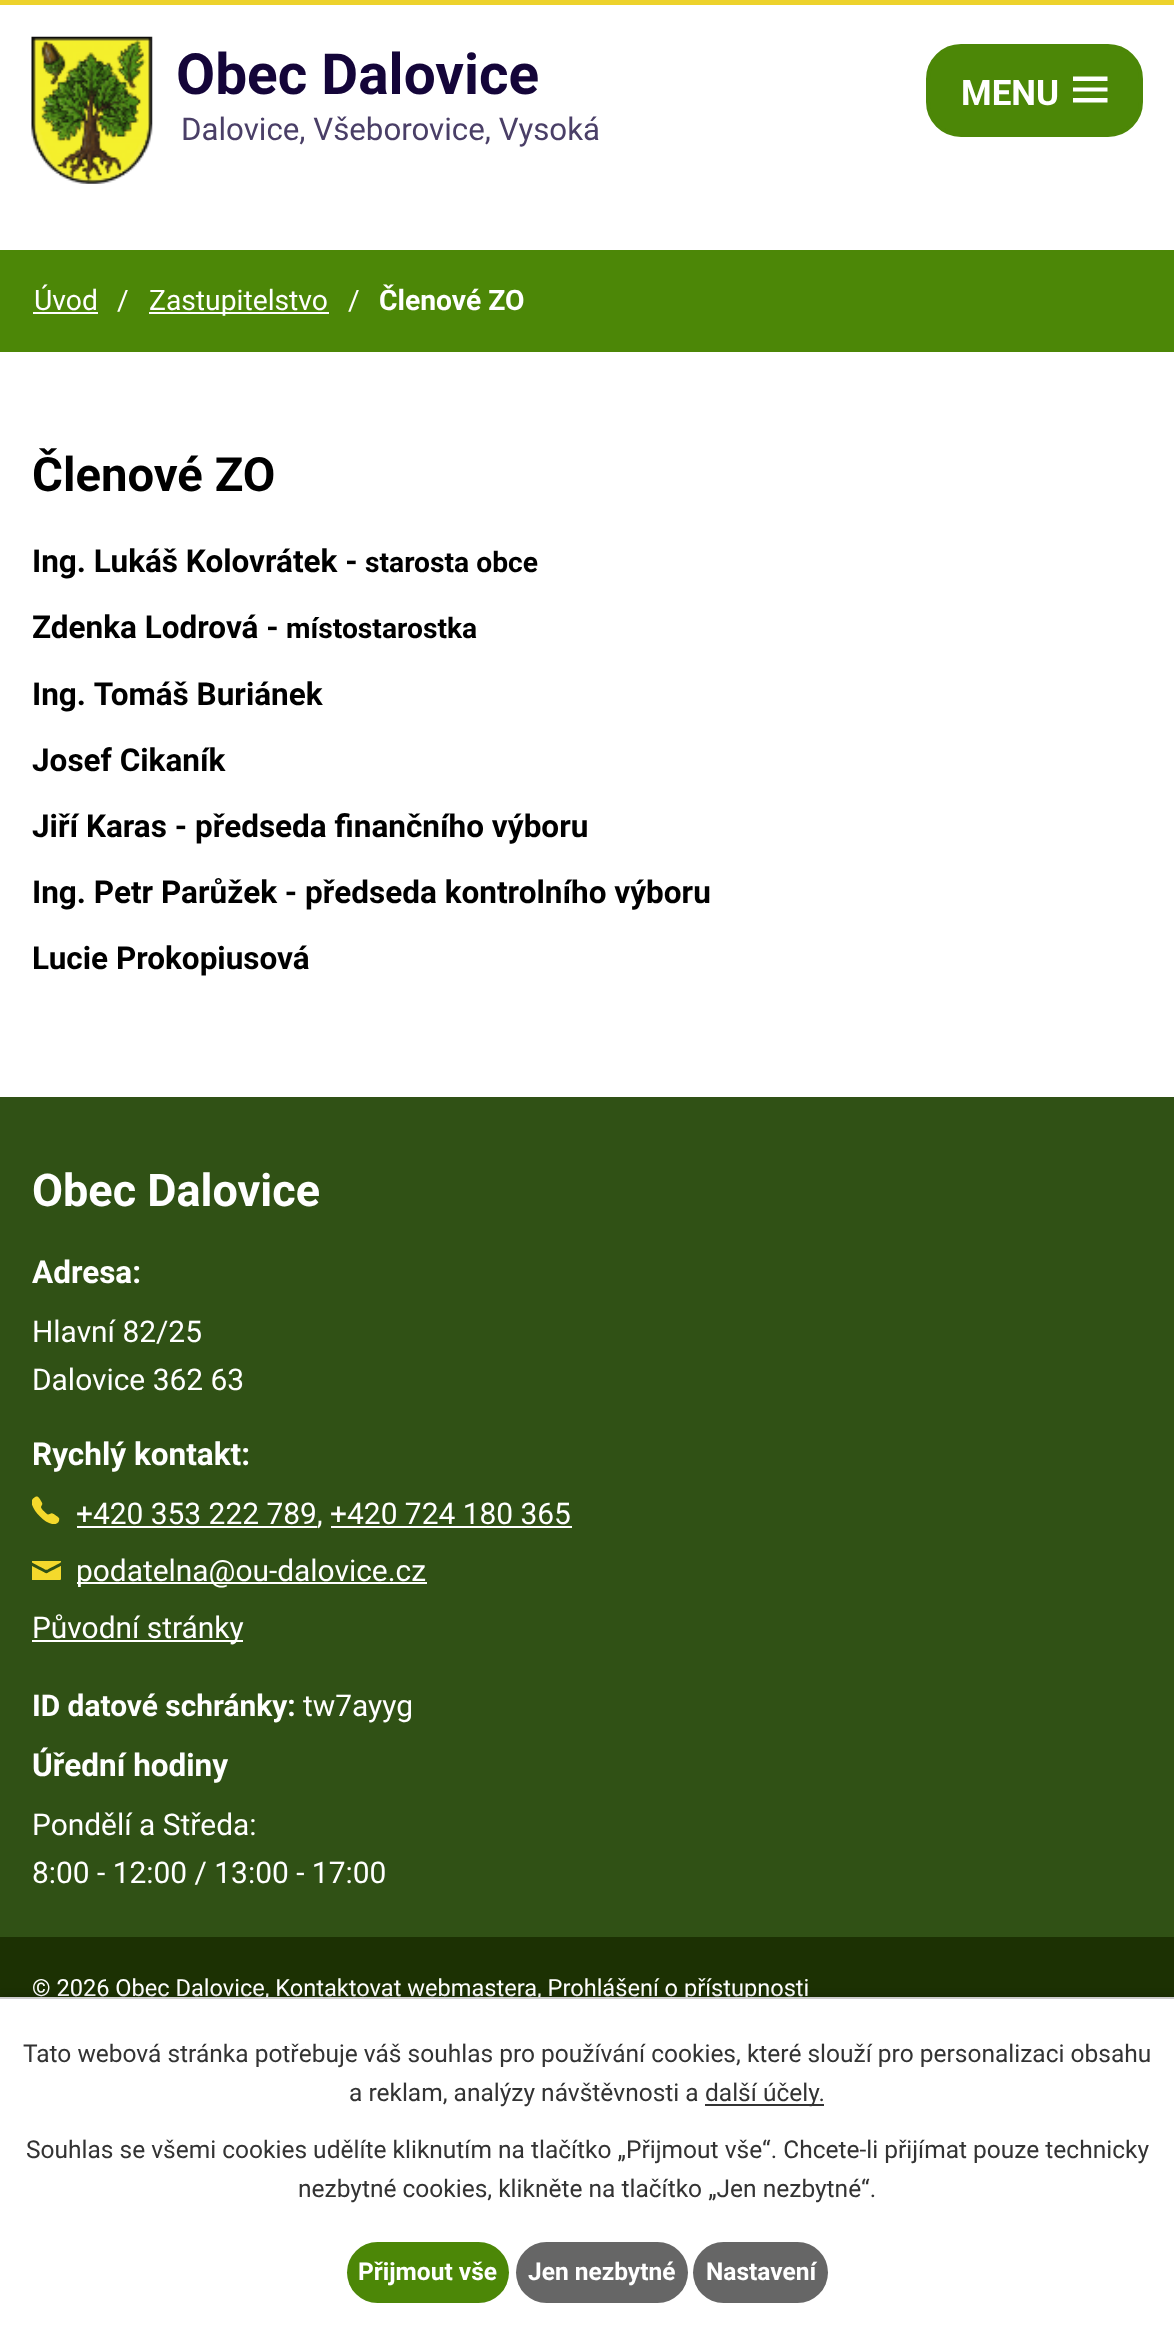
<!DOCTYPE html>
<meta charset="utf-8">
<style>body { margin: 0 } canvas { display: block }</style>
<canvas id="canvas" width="1174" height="2335"></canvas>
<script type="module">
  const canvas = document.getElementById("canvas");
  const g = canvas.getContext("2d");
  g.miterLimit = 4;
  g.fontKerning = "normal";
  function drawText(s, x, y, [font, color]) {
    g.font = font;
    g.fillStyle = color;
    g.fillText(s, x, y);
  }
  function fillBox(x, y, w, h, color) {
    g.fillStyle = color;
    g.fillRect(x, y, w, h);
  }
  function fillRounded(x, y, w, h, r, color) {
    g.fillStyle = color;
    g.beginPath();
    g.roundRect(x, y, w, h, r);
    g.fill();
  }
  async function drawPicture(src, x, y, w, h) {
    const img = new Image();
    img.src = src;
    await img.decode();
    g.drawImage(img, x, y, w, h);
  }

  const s1 = ["bold 56.75px Roboto", "#140539"];
  const s2 = ["31.25px Roboto", "#4A3F67"];
  const s3 = ["bold 35px Roboto", "#FFFFFF"];
  const s4 = ["28.25px Roboto", "#FFFFFF"];
  const s5 = ["bold 28.25px Roboto", "#FFFFFF"];
  const s6 = ["bold 47.25px Roboto", "#000000"];
  const s7 = ["bold 31.5px Roboto", "#000000"];
  const s8 = ["bold 28.25px Roboto", "#000000"];
  const s9 = ["bold 45px Roboto", "#FFFFFF"];
  const s10 = ["bold 31.5px Roboto", "#FFFFFF"];
  const s11 = ["29.9px Roboto", "#FFFFFF"];
  const s12 = ["bold 29.9px Roboto", "#FFFFFF"];
  const s13 = ["23.6px Roboto", "#FFFFFF"];
  const s14 = ["24.5px Roboto", "#333333"];
  const s15 = ["bold 24.5px Roboto", "#FFFFFF"];

  fillBox(0, 0, 1174, 2335, "#FFFFFF");
  fillBox(0, 0, 1174, 5, "#EDD22C");
  await drawPicture("pic1.png", 31, 36, 122, 148);
  drawText("Obec Dalovice", 176, 94, s1);
  drawText("Dalovice, Všeborovice, Vysoká", 181, 140, s2);
  g.fillStyle = "#4C8707";
  g.beginPath();
  g.roundRect(928, 46, 213, 89, 33);
  g.fill();
  g.strokeStyle = "#4C8707";
  g.lineWidth = 4;
  g.stroke();
  drawText("MENU", 961, 105, s3);
  g.beginPath();
  g.moveTo(1073, 102.5);
  g.lineTo(1073, 98);
  g.lineTo(1107.5, 98);
  g.lineTo(1107.5, 102.5);
  g.closePath();
  g.moveTo(1073, 76.5);
  g.lineTo(1107.5, 76.5);
  g.lineTo(1107.5, 81);
  g.lineTo(1073, 81);
  g.closePath();
  g.moveTo(1073, 91.5);
  g.lineTo(1073, 87.5);
  g.lineTo(1107.5, 87.5);
  g.lineTo(1107.5, 91.5);
  g.closePath();
  g.fill();
  fillBox(0, 250, 1174, 102, "#4C8707");
  drawText("Úvod", 34, 310, s4);
  fillBox(33, 312, 65, 2, "#FFFFFF");
  drawText("/", 117, 310, s4);
  fillBox(149, 312, 180, 2, "#FFFFFF");
  drawText("Zastupitelstvo", 149, 310, s4);
  drawText("/", 348, 310, s4);
  drawText("Členové ZO", 379, 310, s5);
  drawText("Členové ZO", 32, 491, s6);
  drawText("Ing. Lukáš Kolovrátek -", 32, 572, s7);
  drawText("starosta obce", 365, 572, s8);
  drawText("Zdenka Lodrová -", 32, 638, s7);
  drawText("místostarostka", 286, 638, s8);
  drawText("Ing. Tomáš Buriánek", 32, 705, s7);
  drawText("Josef Cikaník", 32, 771, s7);
  drawText("Jiří Karas - předseda finančního výboru", 32, 837, s7);
  drawText("Ing. Petr Parůžek - předseda kontrolního výboru", 32, 903, s7);
  drawText("Lucie Prokopiusová", 32, 969, s7);
  fillBox(0, 1097, 1174, 840, "#305115");
  drawText("Obec Dalovice", 32, 1206, s9);
  drawText("Adresa:", 32, 1283, s10);
  drawText("Hlavní 82/25", 32, 1342, s11);
  drawText("Dalovice 362 63", 32, 1390, s11);
  drawText("Rychlý kontakt:", 32, 1465, s10);
  await drawPicture("pic2.png", 32, 1496, 28, 28);
  fillBox(77, 1526, 240, 2, "#FFFFFF");
  drawText("+420 353 222 789, +420 724 180 365", 76, 1524, s11);
  fillBox(331, 1526, 241, 2, "#FFFFFF");
  await drawPicture("pic3.png", 32, 1561, 29, 19);
  fillBox(77, 1582, 350, 2, "#FFFFFF");
  drawText("podatelna@ou-dalovice.cz", 76, 1581, s11);
  fillBox(32, 1640, 211, 2, "#FFFFFF");
  drawText("Původní stránky", 32, 1638, s11);
  drawText("ID datové schránky:", 32, 1716, s12);
  drawText("tw7ayyg", 303, 1716, s11);
  drawText("Úřední hodiny", 32, 1776, s10);
  drawText("Pondělí a Středa:", 32, 1835, s11);
  drawText("8:00 - 12:00 / 13:00 - 17:00", 32, 1883, s11);
  fillBox(0, 1937, 1174, 60, "#1C3103");
  drawText("© 2026 Obec Dalovice, Kontaktovat webmastera, Prohlášení o přístupnosti", 32, 1996, s13);
  g.fillStyle = "rgba(0, 0, 0, 0.2)";
  g.filter = "blur(4.5px)";
  g.beginPath();
  g.rect(0, 1997, 1174, 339);
  g.fill();
  g.filter = "none";
  fillBox(0, 1999, 1174, 336, "#FFFFFF");
  fillBox(0, 1997, 1174, 2, "#CCCCCC");
  drawText("Tato webová stránka potřebuje váš souhlas pro používání cookies, které slouží pro personalizaci obsahu", 23, 2062, s14);
  drawText("a reklam, analýzy návštěvnosti a", 349, 2101, s14);
  fillBox(705, 2104, 119, 2, "#333333");
  drawText("další účely.", 705, 2101, s14);
  drawText("Souhlas se všemi cookies udělíte kliknutím na tlačítko „Přijmout vše“. Chcete-li přijímat pouze technicky", 26, 2158, s14);
  drawText("nezbytné cookies, klikněte na tlačítko „Jen nezbytné“.", 298, 2197, s14);
  fillRounded(347, 2242, 162, 61, 30.5, "#4C8707");
  drawText("Přijmout vše", 358, 2280, s15);
  fillRounded(516, 2242, 172, 61, 30.5, "#666666");
  drawText("Jen nezbytné", 528, 2280, s15);
  fillRounded(693, 2242, 135, 61, 30.5, "#666666");
  drawText("Nastavení", 706, 2280, s15);
</script>
